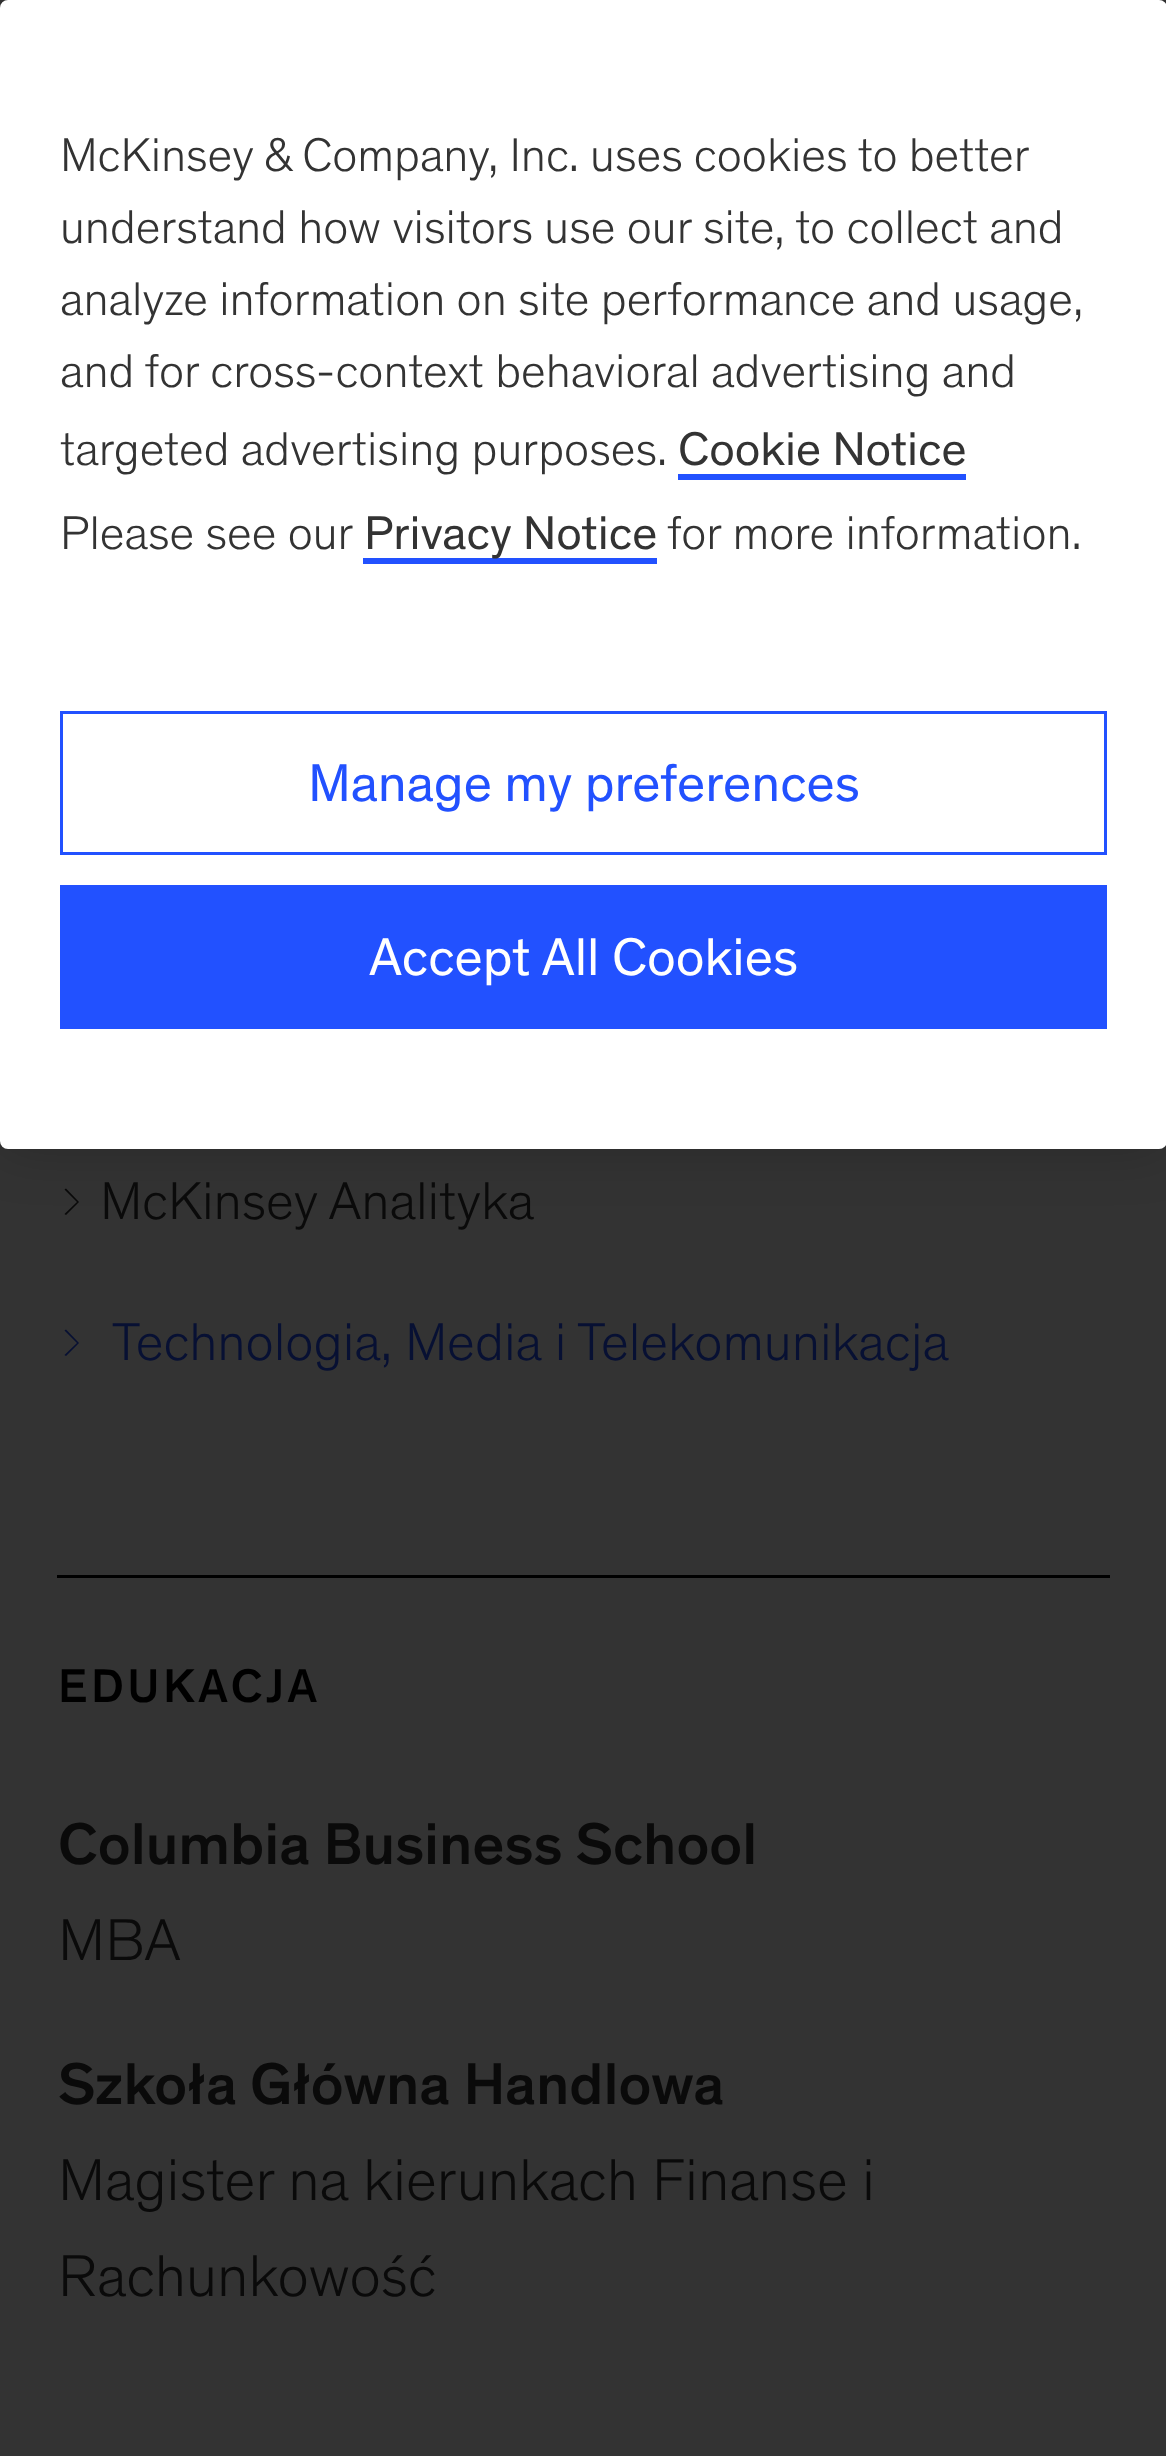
<!DOCTYPE html>
<meta charset="utf-8">
<style>body { margin: 0 } canvas { display: block }</style>
<canvas id="canvas" width="1166" height="2456"></canvas>
<script type="module">
  const canvas = document.getElementById("canvas");
  const g = canvas.getContext("2d");
  g.miterLimit = 4;
  g.fontKerning = "normal";
  function drawText(s, x, y, [font, color]) {
    g.font = font;
    g.fillStyle = color;
    g.fillText(s, x, y);
  }
  function fillBox(x, y, w, h, color) {
    g.fillStyle = color;
    g.fillRect(x, y, w, h);
  }
  function fillRounded(x, y, w, h, r, color) {
    g.fillStyle = color;
    g.beginPath();
    g.roundRect(x, y, w, h, r);
    g.fill();
  }

  const s1 = ["300 48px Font", "#333333"];
  const s2 = ["48px Font", "#333333"];
  const s3 = ["54px Font", "#2251FF"];
  const s4 = ["54px Font", "#FFFFFF"];
  const s5 = ["300 54px Font", "#0A0A0A"];
  const s6 = ["300 54px Font", "#071033"];
  const s7 = ["500 48px Font", "#000000"];
  const s8 = ["500 60px Font", "#0A0A0A"];
  const s9 = ["300 60px Font", "#0A0A0A"];

  fillBox(0, 0, 1166, 2456, "#333333");
  g.fillStyle = "#0A0A0A";
  g.beginPath();
  g.moveTo(78, 1203);
  g.lineTo(66, 1215);
  g.lineTo(64.5, 1214);
  g.lineTo(77, 1202);
  g.lineTo(64.5, 1189.5);
  g.lineTo(66, 1188.5);
  g.lineTo(79, 1202);
  g.closePath();
  g.fill();
  g.fillStyle = "rgba(0, 0, 0, 0.2)";
  g.filter = "blur(27px)";
  g.beginPath();
  g.roundRect(0, 0, 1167, 1149, 8);
  g.fill();
  g.filter = "none";
  fillRounded(0, 0, 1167, 1149, 8, "#FFFFFF");
  g.wordSpacing = "-0.25px";
  drawText("McKinsey & Company, Inc. uses cookies to better", 60, 171, s1);
  g.wordSpacing = "0px";
  drawText("understand how visitors use our site, to collect and", 60, 243, s1);
  drawText("analyze information on site performance and usage,", 60, 315, s1);
  drawText("and for cross-context behavioral advertising and", 60, 387, s1);
  drawText("targeted advertising purposes.", 60, 465, s1);
  drawText("Cookie Notice", 678, 465, s2);
  fillBox(678, 474, 288, 6, "#2251FF");
  drawText("Please see our", 60, 549, s1);
  fillBox(363, 558, 294, 6, "#2251FF");
  drawText("Privacy Notice", 364, 549, s2);
  drawText("for more information.", 667, 549, s1);
  g.strokeStyle = "#2251FF";
  g.lineWidth = 3;
  g.strokeRect(61.5, 712.5, 1044, 141);
  drawText("Manage my preferences", 308, 801, s3);
  fillBox(60, 885, 1047, 144, "#2251FF");
  drawText("Accept All Cookies", 369, 975, s4);
  drawText("McKinsey Analityka", 100, 1219, s5);
  g.fillStyle = "#071033";
  g.beginPath();
  g.moveTo(78, 1344);
  g.lineTo(66, 1356);
  g.lineTo(64.5, 1355);
  g.lineTo(77, 1343);
  g.lineTo(64.5, 1330.5);
  g.lineTo(66, 1329.5);
  g.lineTo(79, 1343);
  g.closePath();
  g.fill();
  drawText("Technologia, Media i Telekomunikacja", 112, 1360, s6);
  fillBox(57, 1575, 1053, 3, "#000000");
  g.letterSpacing = "3.5px";
  drawText("EDUKACJA", 58, 1702, s7);
  g.letterSpacing = "0px";
  drawText("Columbia Business School", 58, 1864, s8);
  drawText("MBA", 58, 1960, s9);
  drawText("Szkoła Główna Handlowa", 58, 2104, s8);
  drawText("Magister na kierunkach Finanse i", 58, 2200, s9);
  drawText("Rachunkowość", 58, 2296, s9);
</script>
